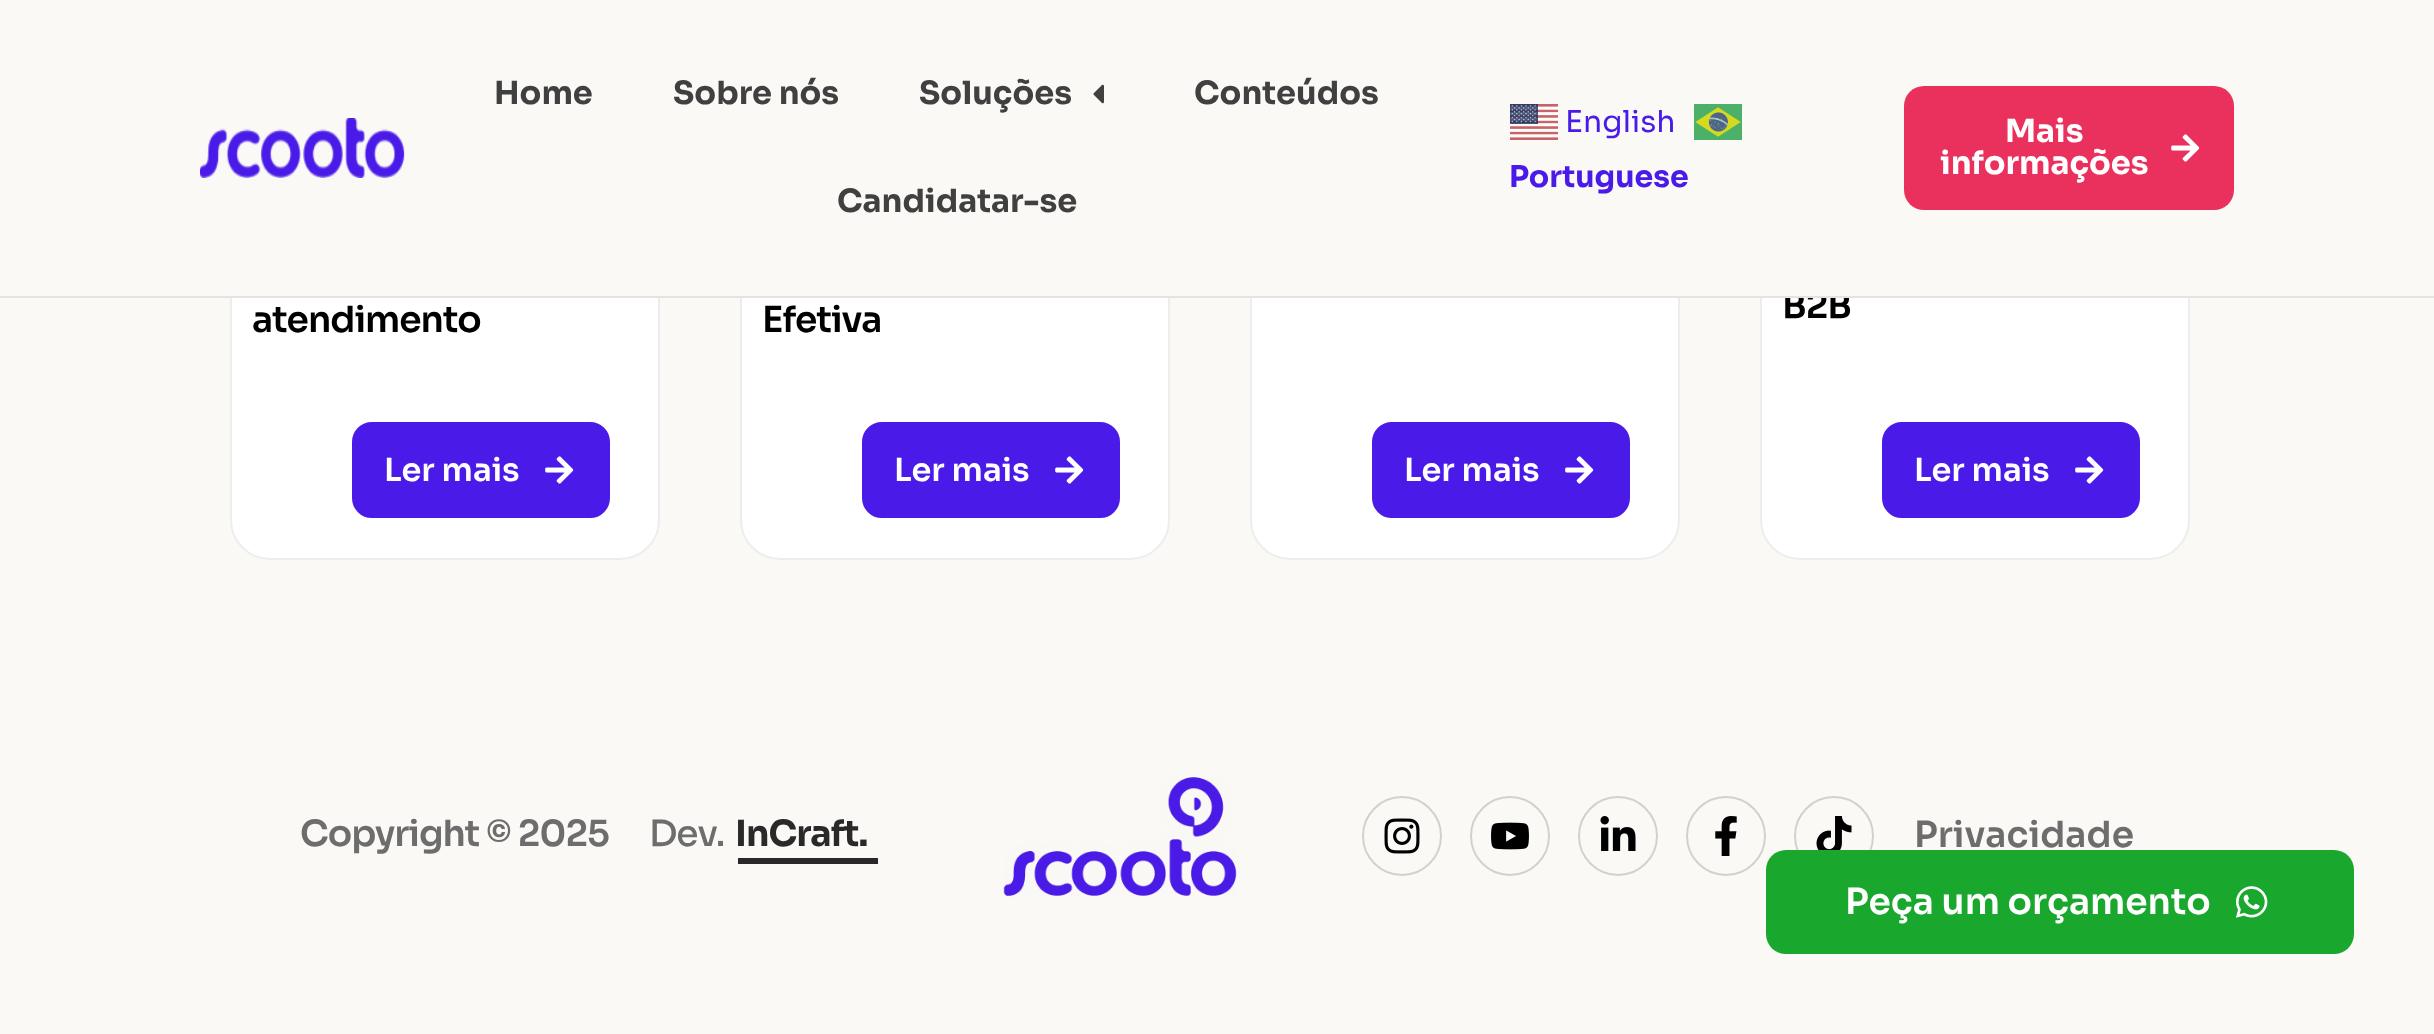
<!DOCTYPE html>
<meta charset="utf-8">
<style>body { margin: 0 } canvas { display: block }</style>
<canvas id="canvas" width="2434" height="1034"></canvas>
<script type="module">
  const canvas = document.getElementById("canvas");
  const g = canvas.getContext("2d");
  g.miterLimit = 4;
  g.fontKerning = "normal";
  function drawText(s, x, y, [font, color]) {
    g.font = font;
    g.fillStyle = color;
    g.fillText(s, x, y);
  }
  function fillBox(x, y, w, h, color) {
    g.fillStyle = color;
    g.fillRect(x, y, w, h);
  }
  function fillRounded(x, y, w, h, r, color) {
    g.fillStyle = color;
    g.beginPath();
    g.roundRect(x, y, w, h, r);
    g.fill();
  }
  async function drawPicture(src, x, y, w, h) {
    const img = new Image();
    img.src = src;
    await img.decode();
    g.drawImage(img, x, y, w, h);
  }

  const s1 = ["600 36px Sora", "#000000"];
  const s2 = ["bold 32px Sora", "#404040"];
  const s3 = ["30px Sora", "#4A1BE8"];
  const s4 = ["bold 30px Sora", "#4A1BE8"];
  const s5 = ["bold 32px Sora", "#FFFFFF"];
  const s6 = ["600 32px Sora", "#FFFFFF"];
  const s7 = ["600 36px Sora", "#6D6D6D"];
  const s8 = ["500 36px Sora", "#6D6D6D"];
  const s9 = ["bold 36px Sora", "#292929"];
  const s10 = ["600 36px Sora", "#FFFFFF"];

  fillBox(0, 0, 2434, 1034, "#FAF9F6");
  fillRounded(230, -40, 430, 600, 40, "#FFFFFF");
  g.beginPath();
  g.roundRect(231, -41, 428, 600, 39);
  g.strokeStyle = "rgba(1, 1, 1, 0.07)";
  g.lineWidth = 2;
  g.stroke();
  fillRounded(740, -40, 430, 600, 40, "#FFFFFF");
  g.beginPath();
  g.roundRect(741, -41, 428, 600, 39);
  g.stroke();
  fillRounded(1250, -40, 430, 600, 40, "#FFFFFF");
  g.beginPath();
  g.roundRect(1251, -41, 428, 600, 39);
  g.stroke();
  fillRounded(1760, -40, 430, 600, 40, "#FFFFFF");
  g.beginPath();
  g.roundRect(1761, -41, 428, 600, 39);
  g.stroke();
  g.letterSpacing = "-1px";
  drawText("B2B", 1782, 318, s1);
  fillBox(230, 0, 1960, 296, "#FAF9F6");
  fillBox(0, 296, 2434, 2, "#E4E3E0");
  await drawPicture("pic1.png", 200, 118, 205, 60);
  g.letterSpacing = "0px";
  drawText("Home", 494, 104, s2);
  drawText("Sobre nós", 673, 104, s2);
  drawText("Soluções", 919, 104, s2);
  await drawPicture("pic2.png", 1093, 84, 11, 20);
  drawText("Conteúdos", 1194, 104, s2);
  drawText("Candidatar-se", 837, 212, s2);
  await drawPicture("pic3.png", 1510, 104, 48, 36);
  drawText("English", 1565, 132, s3);
  await drawPicture("pic4.png", 1694, 104, 48, 36);
  drawText("Portuguese", 1509, 187, s4);
  fillRounded(1904, 86, 330, 124, 20, "#EA305C");
  drawText("Mais", 2005, 142, s5);
  drawText("informações", 1940, 174, s5);
  await drawPicture("pic5.png", 2171, 134, 29, 28);
  g.letterSpacing = "-1px";
  drawText("atendimento", 252, 332, s1);
  g.fillStyle = "#4A1BE8";
  g.beginPath();
  g.roundRect(353, 423, 256, 94, 19);
  g.fill();
  g.strokeStyle = "#4A1BE8";
  g.stroke();
  g.letterSpacing = "0px";
  drawText("Ler mais", 384, 481, s6);
  await drawPicture("pic6.png", 545, 456, 29, 28);
  g.letterSpacing = "-1px";
  drawText("Efetiva", 762, 332, s1);
  g.fillStyle = "#4A1BE8";
  g.beginPath();
  g.roundRect(863, 423, 256, 94, 19);
  g.fill();
  g.stroke();
  g.letterSpacing = "0px";
  drawText("Ler mais", 894, 481, s6);
  await drawPicture("pic6.png", 1055, 456, 29, 28);
  g.fillStyle = "#4A1BE8";
  g.beginPath();
  g.roundRect(1373, 423, 256, 94, 19);
  g.fill();
  g.stroke();
  drawText("Ler mais", 1404, 481, s6);
  await drawPicture("pic6.png", 1565, 456, 29, 28);
  g.fillStyle = "#4A1BE8";
  g.beginPath();
  g.roundRect(1883, 423, 256, 94, 19);
  g.fill();
  g.stroke();
  drawText("Ler mais", 1914, 481, s6);
  await drawPicture("pic6.png", 2075, 456, 29, 28);
  g.letterSpacing = "-1px";
  drawText("Copyright © 2025", 300, 846, s7);
  drawText("Dev.", 649, 846, s8);
  drawText("InCraft.", 735, 846, s9);
  fillBox(738, 858, 140, 6, "#292929");
  await drawPicture("pic7.png", 1003, 777, 234, 120);
  g.beginPath();
  g.arc(1402, 836, 39, 0, Math.PI * 2);
  g.strokeStyle = "#D2D1CF";
  g.stroke();
  await drawPicture("pic8.png", 1384, 818, 36, 36);
  g.beginPath();
  g.arc(1510, 836, 39, 0, Math.PI * 2);
  g.stroke();
  await drawPicture("pic9.png", 1491, 822, 38, 28);
  g.beginPath();
  g.arc(1618, 836, 39, 0, Math.PI * 2);
  g.stroke();
  await drawPicture("pic10.png", 1600, 816, 36, 35);
  g.beginPath();
  g.arc(1726, 836, 39, 0, Math.PI * 2);
  g.stroke();
  await drawPicture("pic11.png", 1715, 816, 22, 40);
  g.beginPath();
  g.arc(1834, 836, 39, 0, Math.PI * 2);
  g.stroke();
  await drawPicture("pic12.png", 1816, 816, 36, 34);
  g.letterSpacing = "0px";
  drawText("Privacidade", 1914, 847, s7);
  fillRounded(1766, 850, 588, 104, 20, "#19A82D");
  drawText("Peça um orçamento", 1845, 914, s10);
  await drawPicture("pic13.png", 2235, 886, 33, 32);
</script>
